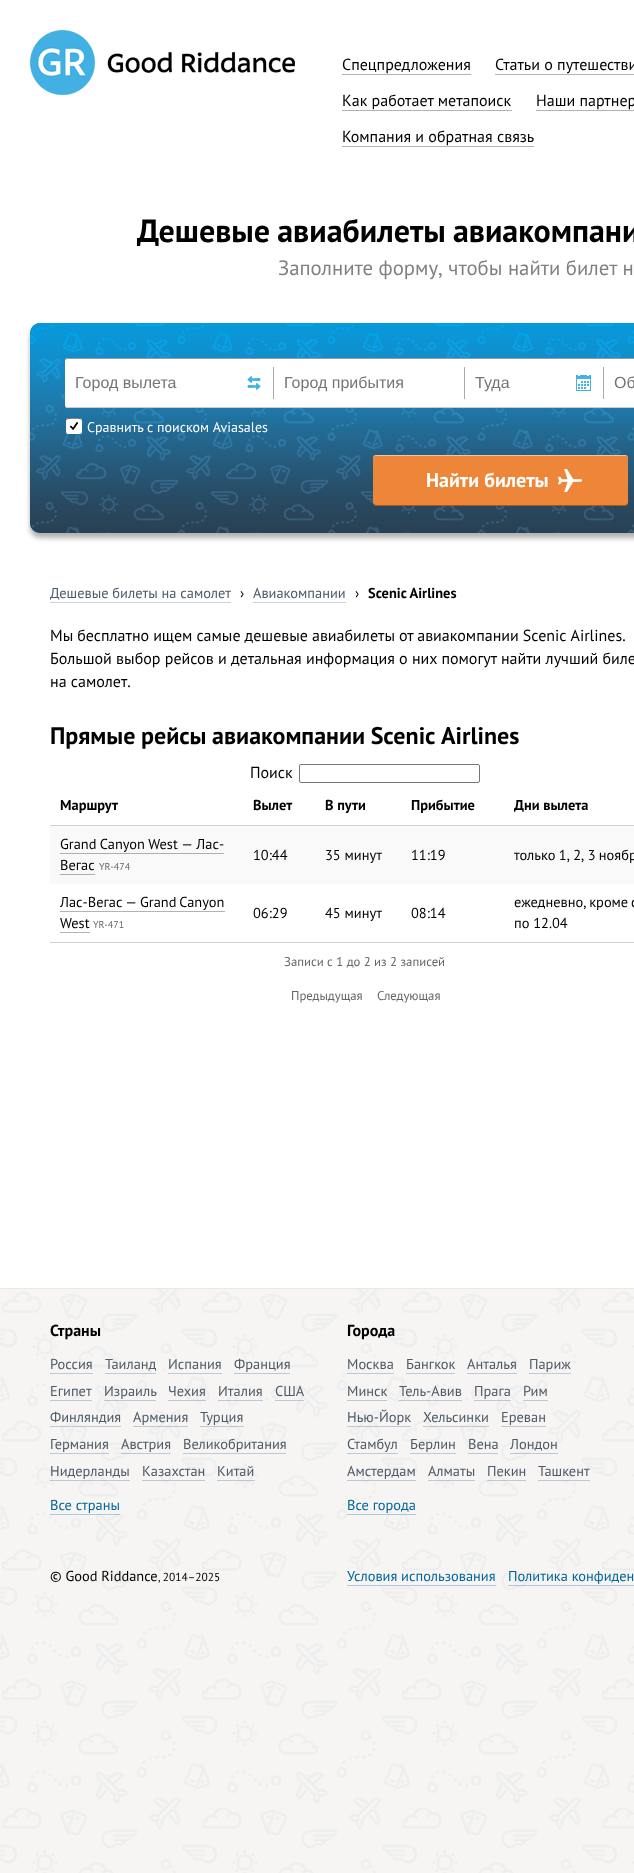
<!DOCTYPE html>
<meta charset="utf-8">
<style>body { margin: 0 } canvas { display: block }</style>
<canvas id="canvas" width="634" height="1873"></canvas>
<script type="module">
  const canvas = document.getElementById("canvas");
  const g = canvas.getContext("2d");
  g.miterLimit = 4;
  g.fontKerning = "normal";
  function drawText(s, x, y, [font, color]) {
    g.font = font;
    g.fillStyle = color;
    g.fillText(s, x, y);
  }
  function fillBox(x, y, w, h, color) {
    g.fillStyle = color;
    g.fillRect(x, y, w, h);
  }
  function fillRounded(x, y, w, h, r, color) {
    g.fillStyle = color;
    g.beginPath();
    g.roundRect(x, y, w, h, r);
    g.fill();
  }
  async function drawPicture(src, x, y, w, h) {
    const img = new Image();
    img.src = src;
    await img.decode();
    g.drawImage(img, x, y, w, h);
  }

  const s1 = ["16px PT Sans", "#000000"];
  const s2 = ["bold 32px PT Sans", "#000000"];
  const s3 = ["20.75px PT Sans", "#808080"];
  const s4 = ["16px Liberation Sans", "#757575"];
  const s5 = ["14px PT Sans", "#FFFFFF"];
  const s6 = ["bold 20px PT Sans", "#FFFFFF"];
  const s7 = ["14.4px PT Sans", "#4D5A68"];
  const s8 = ["14.4px PT Sans", "#000000"];
  const s9 = ["bold 14.4px PT Sans", "#000000"];
  const s10 = ["bold 24px PT Sans", "#000000"];
  const s11 = ["10px PT Sans", "#666666"];
  const s12 = ["12.75px PT Sans", "#666666"];
  const s13 = ["bold 16px PT Sans", "#000000"];
  const s14 = ["14.4px PT Sans", "#006699"];
  const s15 = ["11.5px PT Sans", "#000000"];

  fillBox(0, 0, 634, 1873, "#F6F5F3");
  await drawPicture("pic1.png", 0, 1289, 634, 584);
  fillBox(0, 0, 634, 1288, "#FFFFFF");
  fillBox(0, 1288, 634, 1, "#EDE8DE");
  await drawPicture("pic2.png", 30, 30, 265, 65);
  drawText("Спецпредложения", 342, 70, s1);
  fillBox(342, 74, 129, 1, "#B3B3B3");
  drawText("Статьи о путешестви", 495, 70, s1);
  fillBox(495, 74, 139, 1, "#B3B3B3");
  drawText("Как работает метапоиск", 342, 106, s1);
  fillBox(342, 110, 170, 1, "#B3B3B3");
  drawText("Наши партнер", 536, 106, s1);
  fillBox(536, 110, 98, 1, "#B3B3B3");
  drawText("Компания и обратная связь", 342, 142, s1);
  fillBox(342, 146, 192, 1, "#B3B3B3");
  g.wordSpacing = "-1px";
  drawText("Дешевые авиабилеты авиакомпани", 137, 242, s2);
  g.wordSpacing = "0px";
  drawText("Заполните форму, чтобы найти билет н", 278, 275, s3);
  g.fillStyle = "rgba(0, 0, 0, 0.3)";
  g.filter = "blur(2.5px)";
  g.beginPath();
  g.roundRect(30, 328, 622, 210, 10);
  g.fill();
  g.filter = "none";
  fillRounded(30, 323, 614, 210, 10, "#1482B4");
  await drawPicture("pic3.png", 30, 323, 604, 210);
  g.fillStyle = "#FFFFFF";
  g.beginPath();
  g.roundRect(65, 358, 209, 50, [3, 0, 0, 3]);
  g.fill();
  g.fillStyle = "#999999";
  g.beginPath();
  g.moveTo(68, 359);
  g.lineTo(274, 359);
  g.lineTo(274, 358);
  g.lineTo(68, 358);
  g.bezierCurveTo(66, 358, 65, 359, 65, 361);
  g.bezierCurveTo(65, 360, 66, 359, 68, 359);
  g.closePath();
  g.fill();
  g.fillStyle = "#CCCCCC";
  g.beginPath();
  g.moveTo(274, 408);
  g.lineTo(274, 407);
  g.lineTo(68, 407);
  g.bezierCurveTo(66, 407, 65, 406, 65, 405);
  g.bezierCurveTo(65, 407, 66, 408, 68, 408);
  g.closePath();
  g.fill();
  fillBox(273, 367, 1, 32, "#AAAAAA");
  drawText("Город вылета", 75, 388, s4);
  await drawPicture("pic4.png", 247, 376, 14, 14);
  fillBox(274, 359, 360, 48, "#FFFFFF");
  fillBox(274, 358, 360, 1, "#999999");
  fillBox(274, 407, 360, 1, "#CCCCCC");
  fillBox(464, 367, 1, 32, "#AAAAAA");
  drawText("Город прибытия", 284, 388, s4);
  fillBox(603, 367, 1, 32, "#AAAAAA");
  drawText("Туда", 475, 388, s4);
  await drawPicture("pic5.png", 576, 375, 15, 16);
  drawText("Об", 614, 388, s4);
  fillRounded(66, 418, 16, 16, 2, "#FFFFFF");
  await drawPicture("pic6.png", 70, 422, 8, 8);
  g.fillStyle = "rgba(0, 0, 0, 0.6)";
  g.beginPath();
  g.moveTo(68, 419);
  g.bezierCurveTo(70.5, 419, 81, 418, 82, 420.5);
  g.bezierCurveTo(82, 418, 80, 418, 78, 418);
  g.lineTo(70, 418);
  g.bezierCurveTo(67, 418, 66, 418, 66, 421);
  g.bezierCurveTo(66, 420, 67, 419, 68, 419);
  g.closePath();
  g.fill();
  drawText("Сравнить с поиском Aviasales", 87, 432, s5);
  g.fillStyle = "#B5530B";
  g.beginPath();
  g.moveTo(373, 502);
  g.bezierCurveTo(373, 504, 374, 506, 376, 506);
  g.lineTo(625, 506);
  g.bezierCurveTo(627, 506, 628, 504, 628, 502);
  g.bezierCurveTo(628, 504, 627, 505, 625, 505);
  g.lineTo(376, 505);
  g.bezierCurveTo(374, 505, 373, 504, 373, 502);
  g.closePath();
  g.fill();
  fillRounded(373, 455, 255, 50, 3, "#EE863A");
  await drawPicture("pic7.png", 558, 469, 24, 23);
  g.fillStyle = "rgba(255, 255, 255, 0.5)";
  g.beginPath();
  g.moveTo(376, 456);
  g.lineTo(626, 456);
  g.lineTo(628, 457);
  g.lineTo(628, 459);
  g.bezierCurveTo(628, 457, 627, 455, 625, 455);
  g.lineTo(376, 455);
  g.bezierCurveTo(374, 455, 373, 457, 373, 459);
  g.bezierCurveTo(373, 457, 374, 456, 376, 456);
  g.closePath();
  g.fill();
  drawText("Найти билеты", 426, 487, s6);
  drawText("Дешевые билеты на самолет", 50, 598, s7);
  fillBox(50, 602, 181, 1, "#CACEDD");
  drawText("›", 240, 598, s8);
  drawText("Авиакомпании", 253, 598, s7);
  fillBox(253, 602, 93, 1, "#CACEDD");
  drawText("›", 355, 598, s8);
  g.wordSpacing = "-1px";
  drawText("Scenic Airlines", 368, 598, s9);
  g.wordSpacing = "-0.25px";
  drawText("Мы бесплатно ищем самые дешевые авиабилеты от авиакомпании Scenic Airlines.", 50, 641, s1);
  g.wordSpacing = "0px";
  drawText("Большой выбор рейсов и детальная информация о них помогут найти лучший биле", 50, 664, s1);
  drawText("на самолет.", 50, 687, s1);
  g.wordSpacing = "-0.5px";
  drawText("Прямые рейсы авиакомпании Scenic Airlines", 50, 744, s10);
  g.wordSpacing = "0px";
  drawText("Поиск", 250, 778, s1);
  g.beginPath();
  g.roundRect(299.5, 764.5, 180, 18, 1.5);
  g.strokeStyle = "#767676";
  g.stroke();
  fillBox(50, 942, 584, 1, "#D1D1D1");
  fillBox(50, 825, 584, 1, "#D1D1D1");
  drawText("Маршрут", 60, 810, s9);
  drawText("Вылет", 253, 810, s9);
  drawText("В пути", 325, 810, s9);
  drawText("Прибытие", 411, 810, s9);
  drawText("Дни вылета", 514, 810, s9);
  fillBox(50, 826, 584, 58, "#F9F9F9");
  g.wordSpacing = "-0.5px";
  drawText("Grand Canyon West — Лас-", 60, 849, s8);
  fillBox(60, 853, 164, 1, "#AEAEAE");
  g.wordSpacing = "0px";
  drawText("Вегас", 60, 870, s8);
  fillBox(60, 874, 35, 1, "#AEAEAE");
  drawText("YR-474", 99, 870, s11);
  drawText("10:44", 253, 860, s8);
  drawText("35 минут", 325, 860, s8);
  drawText("11:19", 411, 860, s8);
  g.wordSpacing = "-0.5px";
  drawText("только 1, 2, 3 ноябр", 514, 860, s8);
  g.wordSpacing = "-1px";
  drawText("Лас-Вегас — Grand Canyon", 60, 907, s8);
  fillBox(60, 911, 165, 1, "#B3B3B3");
  g.wordSpacing = "0px";
  drawText("West", 60, 928, s8);
  fillBox(60, 932, 30, 1, "#B3B3B3");
  drawText("YR-471", 93, 928, s11);
  drawText("06:29", 253, 918, s8);
  drawText("45 минут", 325, 918, s8);
  drawText("08:14", 411, 918, s8);
  g.wordSpacing = "-1px";
  drawText("ежедневно, кроме с", 514, 907, s8);
  g.wordSpacing = "0px";
  drawText("по 12.04", 514, 928, s8);
  drawText("Записи с 1 до 2 из 2 записей", 284, 966, s12);
  drawText("Предыдущая", 291, 1000, s12);
  drawText("Следующая", 377, 1000, s12);
  drawText("Страны", 50, 1336, s13);
  drawText("Россия", 50, 1369, s7);
  fillBox(50, 1373, 43, 1, "#C3C7D4");
  drawText("Таиланд", 105, 1369, s7);
  fillBox(105, 1373, 51, 1, "rgba(77, 90, 140, 0.3)");
  drawText("Испания", 168, 1369, s7);
  fillBox(168, 1373, 54, 1, "#C3C7D4");
  drawText("Франция", 234, 1369, s7);
  fillBox(234, 1373, 56, 1, "#C3C7D4");
  drawText("Египет", 50, 1396, s7);
  fillBox(50, 1400, 42, 1, "#C3C6D4");
  drawText("Израиль", 104, 1396, s7);
  fillBox(104, 1400, 52, 1, "rgba(77, 90, 140, 0.3)");
  drawText("Чехия", 168, 1396, s7);
  fillBox(168, 1400, 38, 1, "rgba(77, 90, 140, 0.3)");
  drawText("Италия", 218, 1396, s7);
  fillBox(218, 1400, 45, 1, "rgba(77, 90, 140, 0.3)");
  drawText("США", 275, 1396, s7);
  fillBox(275, 1400, 29, 1, "rgba(77, 90, 140, 0.3)");
  drawText("Финляндия", 50, 1422, s7);
  fillBox(50, 1426, 71, 1, "rgba(77, 90, 140, 0.3)");
  drawText("Армения", 133, 1422, s7);
  fillBox(133, 1426, 55, 1, "rgba(77, 90, 140, 0.3)");
  drawText("Турция", 200, 1422, s7);
  fillBox(200, 1426, 44, 1, "rgba(77, 90, 140, 0.3)");
  drawText("Германия", 50, 1449, s7);
  fillBox(50, 1453, 59, 1, "rgba(77, 90, 140, 0.3)");
  drawText("Австрия", 121, 1449, s7);
  fillBox(121, 1453, 50, 1, "rgba(77, 90, 140, 0.3)");
  drawText("Великобритания", 183, 1449, s7);
  fillBox(183, 1453, 103, 1, "#C3C7D4");
  drawText("Нидерланды", 50, 1476, s7);
  fillBox(50, 1480, 80, 1, "rgba(77, 90, 140, 0.3)");
  drawText("Казахстан", 142, 1476, s7);
  fillBox(142, 1480, 63, 1, "rgba(77, 90, 140, 0.3)");
  drawText("Китай", 217, 1476, s7);
  fillBox(217, 1480, 38, 1, "rgba(77, 90, 140, 0.3)");
  drawText("Все страны", 50, 1510, s14);
  fillBox(50, 1514, 70, 1, "rgba(0, 102, 153, 0.3)");
  drawText("Города", 347, 1336, s13);
  drawText("Москва", 347, 1369, s7);
  fillBox(347, 1373, 47, 1, "#C3C6D4");
  drawText("Бангкок", 406, 1369, s7);
  fillBox(406, 1373, 49, 1, "#C3C7D4");
  drawText("Анталья", 467, 1369, s7);
  fillBox(467, 1373, 50, 1, "#C3C7D4");
  drawText("Париж", 529, 1369, s7);
  fillBox(529, 1373, 42, 1, "rgba(77, 90, 140, 0.3)");
  drawText("Минск", 347, 1396, s7);
  fillBox(347, 1400, 40, 1, "#C3C7D4");
  drawText("Тель-Авив", 399, 1396, s7);
  fillBox(399, 1400, 63, 1, "rgba(77, 90, 140, 0.3)");
  drawText("Прага", 474, 1396, s7);
  fillBox(474, 1400, 37, 1, "rgba(77, 90, 140, 0.3)");
  drawText("Рим", 523, 1396, s7);
  fillBox(523, 1400, 25, 1, "#C3C7D4");
  drawText("Нью-Йорк", 347, 1422, s7);
  fillBox(347, 1426, 64, 1, "rgba(77, 90, 140, 0.3)");
  drawText("Хельсинки", 423, 1422, s7);
  fillBox(423, 1426, 66, 1, "rgba(77, 90, 140, 0.3)");
  drawText("Ереван", 501, 1422, s7);
  fillBox(501, 1426, 45, 1, "#C3C7D4");
  drawText("Стамбул", 347, 1449, s7);
  fillBox(347, 1453, 51, 1, "#C3C7D4");
  drawText("Берлин", 410, 1449, s7);
  fillBox(410, 1453, 46, 1, "#C3C7D4");
  drawText("Вена", 468, 1449, s7);
  fillBox(468, 1453, 30, 1, "#C3C7D4");
  drawText("Лондон", 510, 1449, s7);
  fillBox(510, 1453, 48, 1, "rgba(77, 90, 140, 0.3)");
  drawText("Амстердам", 347, 1476, s7);
  fillBox(347, 1480, 69, 1, "rgba(77, 90, 140, 0.3)");
  drawText("Алматы", 428, 1476, s7);
  fillBox(428, 1480, 47, 1, "rgba(77, 90, 140, 0.3)");
  drawText("Пекин", 487, 1476, s7);
  fillBox(487, 1480, 39, 1, "rgba(77, 90, 140, 0.3)");
  drawText("Ташкент", 538, 1476, s7);
  fillBox(538, 1480, 52, 1, "rgba(77, 90, 140, 0.3)");
  drawText("Все города", 347, 1510, s14);
  fillBox(347, 1514, 69, 1, "rgba(0, 102, 153, 0.3)");
  drawText("© Good Riddance", 50, 1581, s8);
  g.wordSpacing = "-1px";
  drawText(", 2014–2025", 158, 1581, s15);
  g.wordSpacing = "0px";
  drawText("Условия использования", 347, 1581, s14);
  fillBox(347, 1585, 149, 1, "#ACCAD8");
  drawText("Политика конфиден", 508, 1581, s14);
  fillBox(508, 1585, 126, 1, "rgba(0, 102, 153, 0.3)");
</script>
